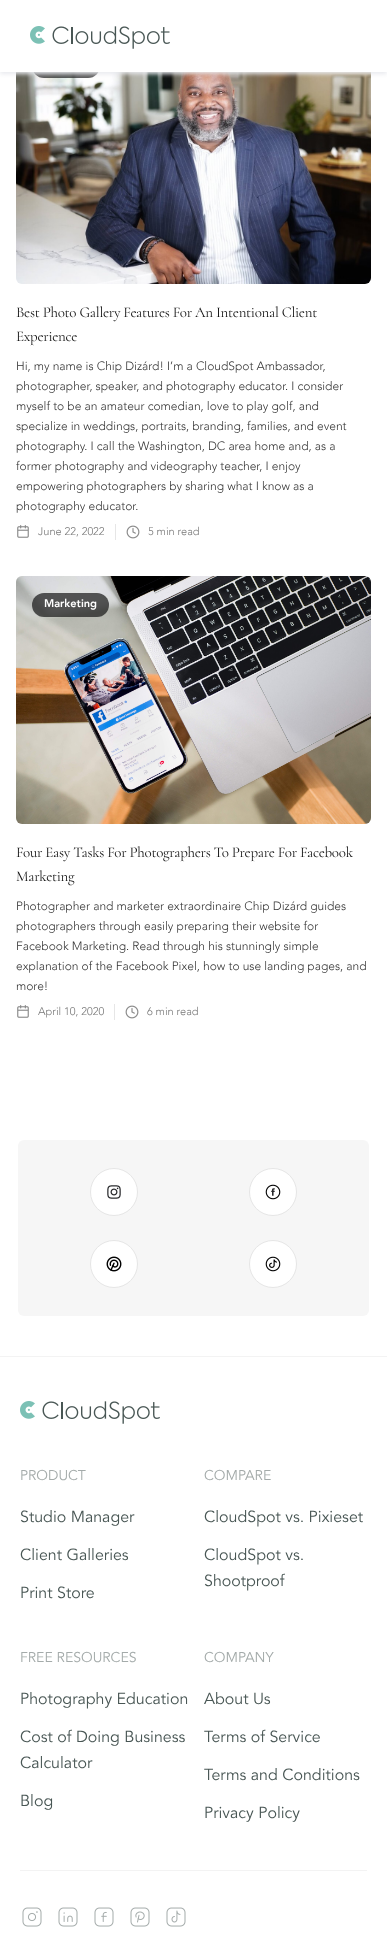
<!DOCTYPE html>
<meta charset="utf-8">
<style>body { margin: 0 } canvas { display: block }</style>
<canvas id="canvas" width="387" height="1937"></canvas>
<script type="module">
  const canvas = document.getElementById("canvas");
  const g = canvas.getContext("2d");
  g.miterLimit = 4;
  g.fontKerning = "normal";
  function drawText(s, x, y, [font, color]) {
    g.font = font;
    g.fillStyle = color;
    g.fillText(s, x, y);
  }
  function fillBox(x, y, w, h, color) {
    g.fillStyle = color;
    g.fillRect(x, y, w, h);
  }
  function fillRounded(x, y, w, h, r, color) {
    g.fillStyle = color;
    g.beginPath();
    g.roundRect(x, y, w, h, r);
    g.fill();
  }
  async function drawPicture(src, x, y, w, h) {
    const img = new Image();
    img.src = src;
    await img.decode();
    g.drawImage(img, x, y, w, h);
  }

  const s1 = ["15px Cormorant", "#151515"];
  const s2 = ["300 12px Avenir", "#333333"];
  const s3 = ["300 11px Avenir", "#777777"];
  const s4 = ["900 11px Avenir", "#FFFFFF"];
  const s5 = ["14px Avenir", "#A4ABAA"];
  const s6 = ["16px Avenir", "#485654"];

  fillBox(0, 0, 387, 1937, "#FFFFFF");
  await drawPicture("pic2.png", 16, 72, 355, 212);
  fillRounded(32, 54, 68, 24, 12, "rgba(21, 21, 21, 0.7)");
  g.fillStyle = "#E8E9EE";
  g.filter = "blur(2px)";
  g.beginPath();
  g.rect(0, 2, 387, 72);
  g.fill();
  g.filter = "none";
  fillBox(0, 0, 387, 72, "#FFFFFF");
  await drawPicture("pic1.png", 30, 26, 140, 23);
  g.letterSpacing = "-0.3px";
  drawText("Best Photo Gallery Features For An Intentional Client", 16, 317, s1);
  drawText("Experience", 16, 341, s1);
  g.letterSpacing = "0px";
  drawText("Hi, my name is Chip Dizárd! I’m a CloudSpot Ambassador,", 16, 370, s2);
  drawText("photographer, speaker, and photography educator. I consider", 16, 390, s2);
  drawText("myself to be an amateur comedian, love to play golf, and", 16, 410, s2);
  drawText("specialize in weddings, portraits, branding, families, and event", 16, 430, s2);
  drawText("photography. I call the Washington, DC area home and, as a", 16, 450, s2);
  drawText("former photography and videography teacher, I enjoy", 16, 470, s2);
  drawText("empowering photographers by sharing what I know as a", 16, 490, s2);
  drawText("photography educator.", 16, 510, s2);
  await drawPicture("pic3.png", 17, 525, 12, 13);
  drawText("June 22, 2022", 38, 535, s3);
  fillBox(115, 524, 1, 16, "#E6E6E6");
  await drawPicture("pic4.png", 126, 525, 14, 14);
  drawText("5 min read", 148, 535, s3);
  await drawPicture("pic5.png", 16, 576, 355, 248);
  fillRounded(32, 593, 77, 24, 12, "rgba(21, 21, 21, 0.7)");
  drawText("Marketing", 44, 607, s4);
  g.letterSpacing = "-0.3px";
  drawText("Four Easy Tasks For Photographers To Prepare For Facebook", 16, 857, s1);
  drawText("Marketing", 16, 881, s1);
  g.letterSpacing = "0px";
  drawText("Photographer and marketer extraordinaire Chip Dizárd guides", 16, 910, s2);
  drawText("photographers through easily preparing their website for", 16, 930, s2);
  drawText("Facebook Marketing. Read through his stunningly simple", 16, 950, s2);
  drawText("explanation of the Facebook Pixel, how to use landing pages, and", 16, 970, s2);
  drawText("more!", 16, 990, s2);
  await drawPicture("pic3.png", 17, 1005, 12, 13);
  drawText("April 10, 2020", 38, 1015, s3);
  fillBox(114, 1004, 1, 16, "#E6E6E6");
  await drawPicture("pic4.png", 125, 1005, 14, 14);
  drawText("6 min read", 147, 1015, s3);
  fillRounded(18, 1140, 351, 176, 6, "#F6F6F6");
  g.fillStyle = "#FFFFFF";
  g.beginPath();
  g.arc(114, 1192, 23.5, 0, Math.PI * 2);
  g.fill();
  g.strokeStyle = "#E6E6E6";
  g.stroke();
  await drawPicture("pic6.png", 107, 1185, 14, 14);
  g.beginPath();
  g.arc(273, 1192, 23.5, 0, Math.PI * 2);
  g.fill();
  g.stroke();
  await drawPicture("pic7.png", 265, 1184, 16, 16);
  g.beginPath();
  g.arc(114, 1264, 23.5, 0, Math.PI * 2);
  g.fill();
  g.stroke();
  await drawPicture("pic8.png", 106, 1256, 16, 16);
  g.beginPath();
  g.arc(273, 1264, 23.5, 0, Math.PI * 2);
  g.fill();
  g.stroke();
  await drawPicture("pic9.png", 265, 1256, 16, 16);
  fillBox(0, 1356, 387, 1, "#F3F3F3");
  fillBox(20, 1870, 347, 1, "#F3F3F3");
  await drawPicture("pic1.png", 20, 1401, 140, 23);
  drawText("PRODUCT", 20, 1480, s5);
  drawText("Studio Manager", 20, 1522, s6);
  drawText("Client Galleries", 20, 1560, s6);
  drawText("Print Store", 20, 1598, s6);
  drawText("COMPARE", 204, 1480, s5);
  drawText("CloudSpot vs. Pixieset", 204, 1522, s6);
  drawText("CloudSpot vs.", 204, 1560, s6);
  drawText("Shootproof", 204, 1586, s6);
  drawText("FREE RESOURCES", 20, 1662, s5);
  drawText("Photography Education", 20, 1704, s6);
  drawText("Cost of Doing Business", 20, 1742, s6);
  drawText("Calculator", 20, 1768, s6);
  drawText("Blog", 20, 1806, s6);
  drawText("COMPANY", 204, 1662, s5);
  drawText("About Us", 204, 1704, s6);
  drawText("Terms of Service", 204, 1742, s6);
  drawText("Terms and Conditions", 204, 1780, s6);
  drawText("Privacy Policy", 204, 1818, s6);
  await drawPicture("pic10.png", 22, 1907, 20, 20);
  await drawPicture("pic11.png", 58, 1907, 20, 20);
  await drawPicture("pic12.png", 94, 1907, 20, 20);
  await drawPicture("pic13.png", 130, 1907, 20, 20);
  await drawPicture("pic14.png", 166, 1907, 20, 20);
</script>
